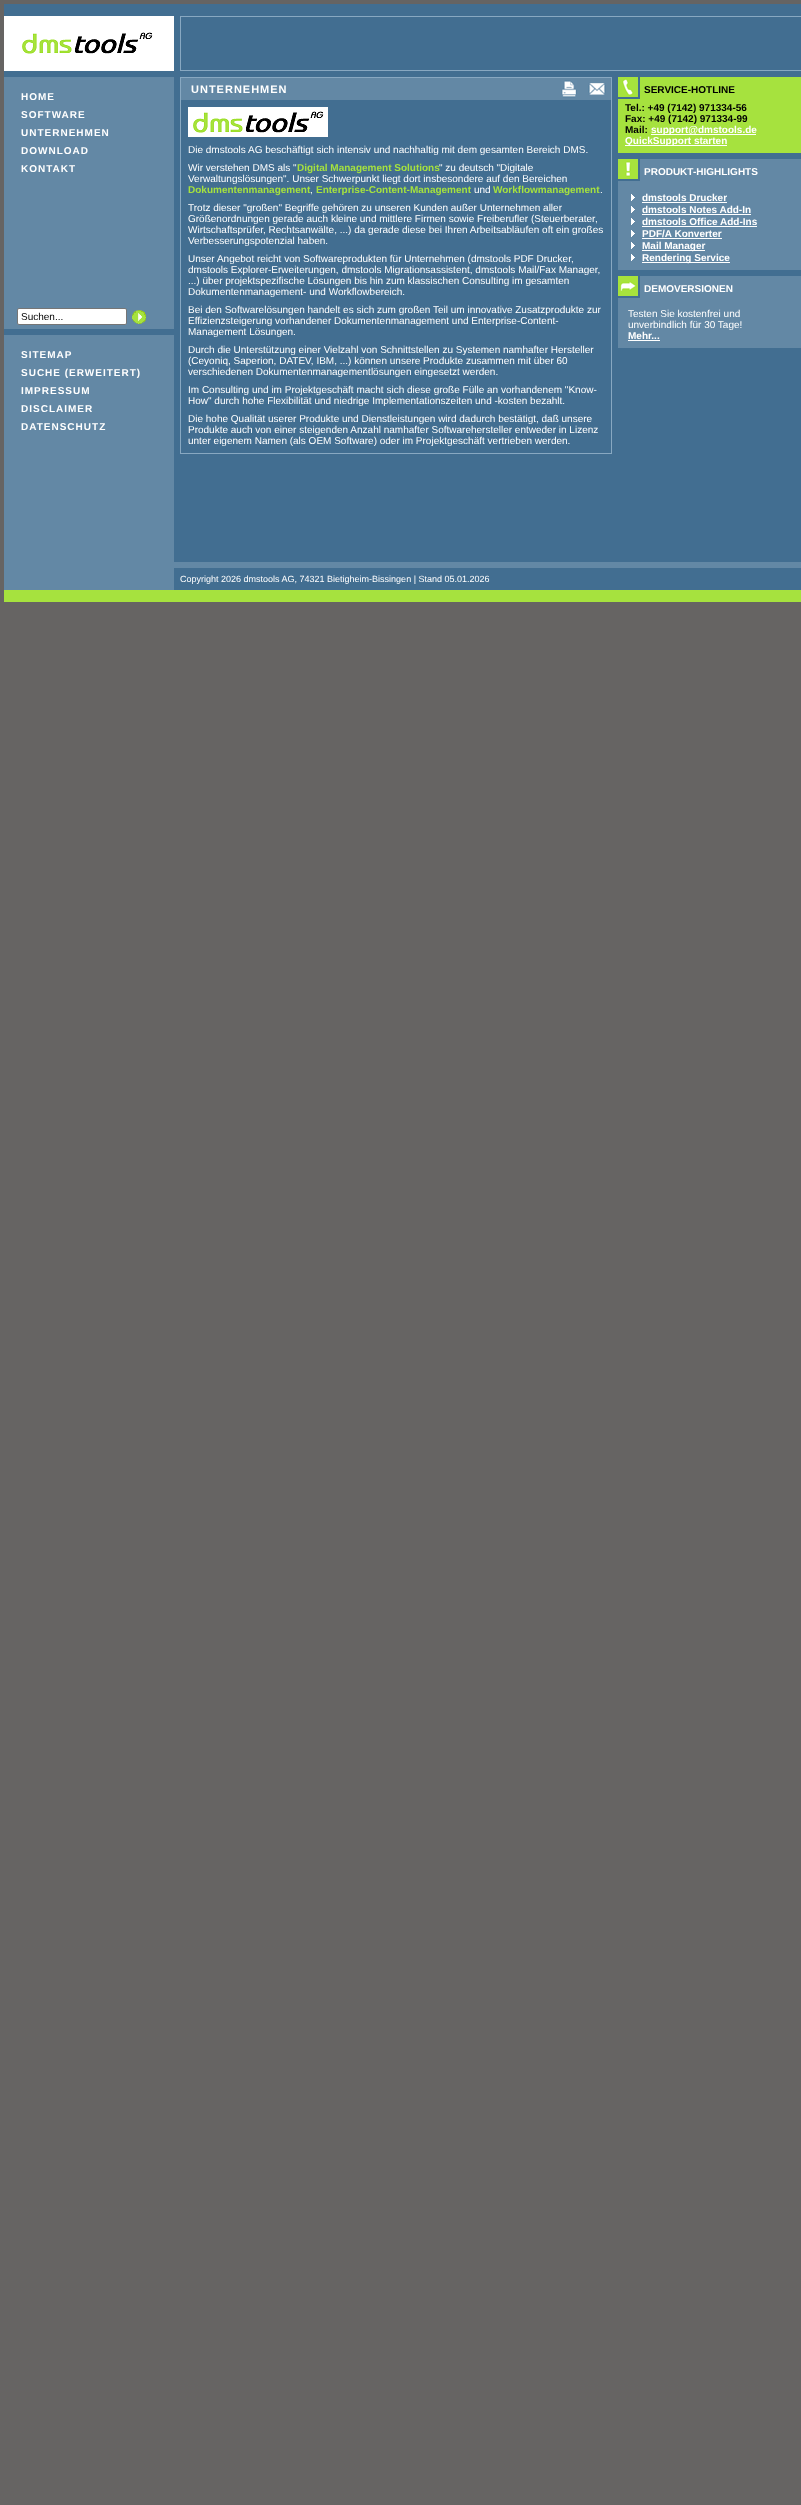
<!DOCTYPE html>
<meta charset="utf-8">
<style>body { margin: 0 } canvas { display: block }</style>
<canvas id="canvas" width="801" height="2505"></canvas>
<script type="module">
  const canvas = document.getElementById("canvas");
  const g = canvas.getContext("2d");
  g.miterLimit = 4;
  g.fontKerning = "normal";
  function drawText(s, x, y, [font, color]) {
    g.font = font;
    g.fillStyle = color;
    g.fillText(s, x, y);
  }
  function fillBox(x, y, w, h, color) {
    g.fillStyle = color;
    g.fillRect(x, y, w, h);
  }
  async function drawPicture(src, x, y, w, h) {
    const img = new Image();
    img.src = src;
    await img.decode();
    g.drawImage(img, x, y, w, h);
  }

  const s1 = ["bold 10px Liberation Sans", "#FFFFFF"];
  const s2 = ["10px Liberation Sans", "#000000"];
  const s3 = ["bold 11px Liberation Sans", "#FFFFFF"];
  const s4 = ["10px Liberation Sans", "#FFFFFF"];
  const s5 = ["bold 10px Liberation Sans", "#A6E23E"];
  const s6 = ["bold 10px Liberation Sans", "#000000"];
  const s7 = ["9px Liberation Sans", "#FFFFFF"];

  fillBox(0, 0, 801, 2505, "#666463");
  fillBox(4, 4, 797, 586, "#426E91");
  fillBox(4, 16, 170, 55, "#FFFFFF");
  await drawPicture("pic1.png", 22, 32, 131, 22);
  fillBox(180, 16, 621, 1, "#88A8C1");
  fillBox(180, 70, 621, 1, "#88A8C1");
  fillBox(180, 16, 1, 55, "#88A8C1");
  fillBox(4, 77, 170, 252, "#6388A5");
  g.letterSpacing = "1px";
  drawText("HOME", 21, 100, s1);
  drawText("SOFTWARE", 21, 118, s1);
  drawText("UNTERNEHMEN", 21, 136, s1);
  drawText("DOWNLOAD", 21, 154, s1);
  drawText("KONTAKT", 21, 172, s1);
  g.beginPath();
  g.roundRect(17.5, 308.5, 109, 16, 1.5);
  g.fill();
  g.strokeStyle = "#767676";
  g.stroke();
  g.letterSpacing = "0px";
  drawText("Suchen...", 21, 320, s2);
  await drawPicture("pic2.png", 132, 310, 14, 14);
  fillBox(4, 335, 170, 227, "#6388A5");
  g.letterSpacing = "1px";
  drawText("SITEMAP", 21, 358, s1);
  drawText("SUCHE (ERWEITERT)", 21, 376, s1);
  drawText("IMPRESSUM", 21, 394, s1);
  drawText("DISCLAIMER", 21, 412, s1);
  drawText("DATENSCHUTZ", 21, 430, s1);
  fillBox(180, 77, 432, 1, "#88A8C1");
  fillBox(611, 77, 1, 377, "#88A8C1");
  fillBox(180, 453, 432, 1, "#88A8C1");
  fillBox(180, 77, 1, 377, "#88A8C1");
  fillBox(181, 78, 430, 22, "#6388A5");
  drawText("UNTERNEHMEN", 191, 93, s3);
  await drawPicture("pic3.png", 561, 80, 16, 18);
  await drawPicture("pic4.png", 588, 83, 18, 12);
  await drawPicture("pic5.png", 188, 107, 140, 30);
  g.letterSpacing = "0px";
  drawText("Die dmstools AG beschäftigt sich intensiv und nachhaltig mit dem gesamten Bereich DMS.", 188, 153, s4);
  drawText("Wir verstehen DMS als \"", 188, 171, s4);
  drawText("Digital Management Solutions", 297, 171, s5);
  drawText("\" zu deutsch \"Digitale", 439, 171, s4);
  drawText("Verwaltungslösungen\". Unser Schwerpunkt liegt dort insbesondere auf den Bereichen", 188, 182, s4);
  drawText("Dokumentenmanagement", 188, 193, s5);
  drawText(",", 310, 193, s4);
  drawText("Enterprise-Content-Management", 316, 193, s5);
  drawText("und", 474, 193, s4);
  drawText("Workflowmanagement", 493, 193, s5);
  drawText(".", 600, 193, s4);
  drawText("Trotz dieser \"großen\" Begriffe gehören zu unseren Kunden außer Unternehmen aller", 188, 211, s4);
  drawText("Größenordnungen gerade auch kleine und mittlere Firmen sowie Freiberufler (Steuerberater,", 188, 222, s4);
  drawText("Wirtschaftsprüfer, Rechtsanwälte, ...) da gerade diese bei Ihren Arbeitsabläufen oft ein großes", 188, 233, s4);
  drawText("Verbesserungspotenzial haben.", 188, 244, s4);
  drawText("Unser Angebot reicht von Softwareprodukten für Unternehmen (dmstools PDF Drucker,", 188, 262, s4);
  drawText("dmstools Explorer-Erweiterungen, dmstools Migrationsassistent, dmstools Mail/Fax Manager,", 188, 273, s4);
  drawText("...) über projektspezifische Lösungen bis hin zum klassischen Consulting im gesamten", 188, 284, s4);
  drawText("Dokumentenmanagement- und Workflowbereich.", 188, 295, s4);
  drawText("Bei den Softwarelösungen handelt es sich zum großen Teil um innovative Zusatzprodukte zur", 188, 313, s4);
  drawText("Effizienzsteigerung vorhandener Dokumentenmanagement und Enterprise-Content-", 188, 324, s4);
  drawText("Management Lösungen.", 188, 335, s4);
  drawText("Durch die Unterstützung einer Vielzahl von Schnittstellen zu Systemen namhafter Hersteller", 188, 353, s4);
  drawText("(Ceyoniq, Saperion, DATEV, IBM, ...) können unsere Produkte zusammen mit über 60", 188, 364, s4);
  drawText("verschiedenen Dokumentenmanagementlösungen eingesetzt werden.", 188, 375, s4);
  drawText("Im Consulting und im Projektgeschäft macht sich diese große Fülle an vorhandenem \"Know-", 188, 393, s4);
  drawText("How\" durch hohe Flexibilität und niedrige Implementationszeiten und -kosten bezahlt.", 188, 404, s4);
  drawText("Die hohe Qualität userer Produkte und Dienstleistungen wird dadurch bestätigt, daß unsere", 188, 422, s4);
  drawText("Produkte auch von einer steigenden Anzahl namhafter Softwarehersteller entweder in Lizenz", 188, 433, s4);
  drawText("unter eigenem Namen (als OEM Software) oder im Projektgeschäft vertrieben werden.", 188, 444, s4);
  fillBox(618, 77, 183, 76, "#A6E23E");
  g.strokeStyle = "#426E91";
  g.lineWidth = 2;
  g.strokeRect(617, 76, 22, 22);
  await drawPicture("pic6.png", 622, 78, 12, 18);
  drawText("SERVICE-HOTLINE", 644, 93, s6);
  drawText("Tel.: +49 (7142) 971334-56", 625, 111, s6);
  drawText("Fax: +49 (7142) 971334-99", 625, 122, s6);
  drawText("Mail:", 625, 133, s6);
  fillBox(651, 134, 105, 1, "#FFFFFF");
  drawText("support@dmstools.de", 651, 133, s1);
  fillBox(625, 145, 102, 1, "#FFFFFF");
  drawText("QuickSupport starten", 625, 144, s1);
  fillBox(618, 159, 183, 111, "#6388A5");
  g.strokeRect(617, 158, 22, 22);
  await drawPicture("pic7.png", 618, 159, 20, 20);
  drawText("PRODUKT-HIGHLIGHTS", 644, 175, s1);
  await drawPicture("pic8.png", 631, 194, 4, 7);
  drawText("dmstools Drucker", 642, 201, s1);
  fillBox(642, 202, 85, 1, "#FFFFFF");
  await drawPicture("pic8.png", 631, 206, 4, 7);
  drawText("dmstools Notes Add-In", 642, 213, s1);
  fillBox(642, 214, 109, 1, "#FFFFFF");
  await drawPicture("pic8.png", 631, 218, 4, 7);
  drawText("dmstools Office Add-Ins", 642, 225, s1);
  fillBox(642, 226, 115, 1, "#FFFFFF");
  await drawPicture("pic8.png", 631, 230, 4, 7);
  drawText("PDF/A Konverter", 642, 237, s1);
  fillBox(642, 238, 80, 1, "#FFFFFF");
  await drawPicture("pic8.png", 631, 242, 4, 7);
  fillBox(642, 250, 63, 1, "#FFFFFF");
  drawText("Mail Manager", 642, 249, s1);
  await drawPicture("pic8.png", 631, 254, 4, 7);
  fillBox(642, 262, 88, 1, "#FFFFFF");
  drawText("Rendering Service", 642, 261, s1);
  fillBox(618, 276, 183, 72, "#6388A5");
  g.strokeRect(617, 275, 22, 22);
  await drawPicture("pic9.png", 618, 276, 20, 20);
  drawText("DEMOVERSIONEN", 644, 292, s1);
  drawText("Testen Sie kostenfrei und", 628, 317, s4);
  drawText("unverbindlich für 30 Tage!", 628, 328, s4);
  drawText("Mehr...", 628, 339, s1);
  fillBox(628, 340, 32, 1, "#FFFFFF");
  fillBox(4, 562, 797, 6, "#6388A5");
  fillBox(4, 568, 170, 22, "#6388A5");
  drawText("Copyright 2026 dmstools AG, 74321 Bietigheim-Bissingen | Stand 05.01.2026", 180, 582, s7);
  fillBox(4, 590, 797, 12, "#A6E23E");
</script>
